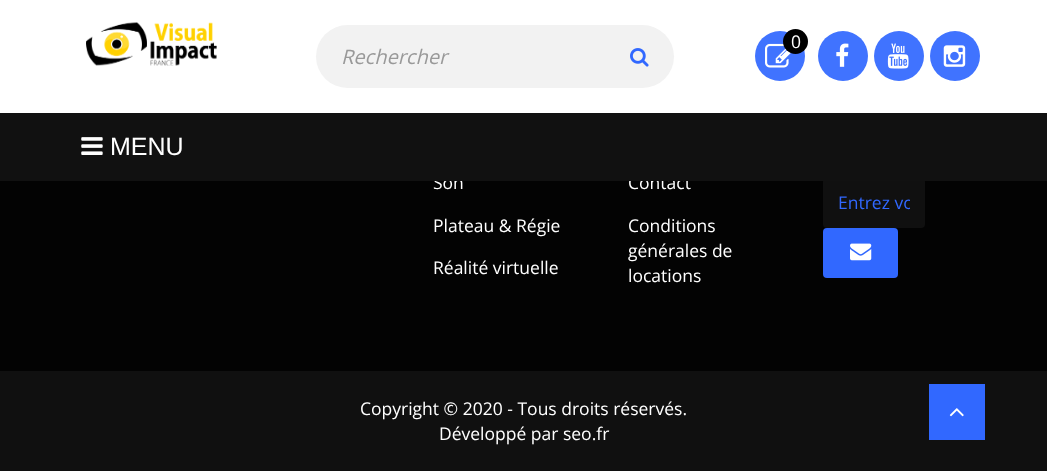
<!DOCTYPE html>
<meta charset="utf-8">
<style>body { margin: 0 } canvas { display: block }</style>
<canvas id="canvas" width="1047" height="471"></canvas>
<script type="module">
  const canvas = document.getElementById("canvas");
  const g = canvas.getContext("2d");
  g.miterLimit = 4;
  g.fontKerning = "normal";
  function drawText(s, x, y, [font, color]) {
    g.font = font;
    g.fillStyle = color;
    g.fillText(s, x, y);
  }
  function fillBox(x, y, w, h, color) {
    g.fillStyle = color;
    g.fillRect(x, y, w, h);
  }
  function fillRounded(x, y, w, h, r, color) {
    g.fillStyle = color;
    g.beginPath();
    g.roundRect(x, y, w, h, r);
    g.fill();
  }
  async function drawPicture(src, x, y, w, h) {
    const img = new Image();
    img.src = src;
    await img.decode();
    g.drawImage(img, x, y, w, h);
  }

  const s1 = ["17.5px Open Sans", "#FFFFFF"];
  const s2 = ["italic 20px Open Sans", "#999999"];
  const s3 = ["25px Liberation Sans", "#FFFFFF"];
  const s4 = ["17.5px Open Sans", "#3168FF"];

  fillBox(0, 0, 1047, 471, "#030303");
  fillBox(0, 0, 1047, 113, "#FFFFFF");
  await drawPicture("pic1.png", 86, 22, 131, 44);
  g.fillStyle = "#4073FF";
  g.beginPath();
  g.arc(780, 56, 25, 0, Math.PI * 2);
  g.fill();
  await drawPicture("pic2.png", 765, 43, 26, 25);
  g.fillStyle = "#000000";
  g.beginPath();
  g.arc(795.5, 41.5, 12.5, 0, Math.PI * 2);
  g.fill();
  drawText("0", 791, 48, s1);
  g.fillStyle = "#4073FF";
  g.beginPath();
  g.arc(843, 56, 25, 0, Math.PI * 2);
  g.fill();
  await drawPicture("pic3.png", 836, 43, 13, 24);
  g.beginPath();
  g.arc(899, 56, 25, 0, Math.PI * 2);
  g.fill();
  await drawPicture("pic4.png", 887, 43, 22, 26);
  g.beginPath();
  g.arc(955, 56, 25, 0, Math.PI * 2);
  g.fill();
  await drawPicture("pic5.png", 943, 45, 23, 22);
  fillRounded(316, 25, 358, 63, 31.5, "#F2F2F2");
  drawText("Rechercher", 341, 64, s2);
  await drawPicture("pic6.png", 630, 48, 19, 19);
  drawText("Son", 433, 189, s1);
  drawText("Contact", 628, 189, s1);
  fillRounded(823, 178, 102, 50, 4, "#101010");
  fillBox(0, 113, 1047, 68, "#111111");
  await drawPicture("pic7.png", 81, 137, 22, 18);
  drawText("MENU", 110, 155, s3);
  drawText("Plateau & Régie", 433, 232, s1);
  drawText("Réalité virtuelle", 433, 274, s1);
  drawText("Conditions", 628, 232, s1);
  drawText("générales de", 628, 257, s1);
  drawText("locations", 628, 282, s1);
  g.save();
  g.beginPath();
  g.rect(838, 190, 72, 24);
  g.clip();
  drawText("Entrez vo", 838, 209, s4);
  g.restore();
  fillRounded(823, 228, 75, 50, 4, "#3168FF");
  await drawPicture("pic8.png", 850, 243, 22, 18);
  fillBox(0, 371, 1047, 100, "#101010");
  drawText("Copyright © 2020 - Tous droits réservés.", 360, 415, s1);
  drawText("Développé par seo.fr", 439, 440, s1);
  fillBox(929, 384, 56, 56, "#3168FF");
  await drawPicture("pic9.png", 949, 408, 15, 9);
</script>
